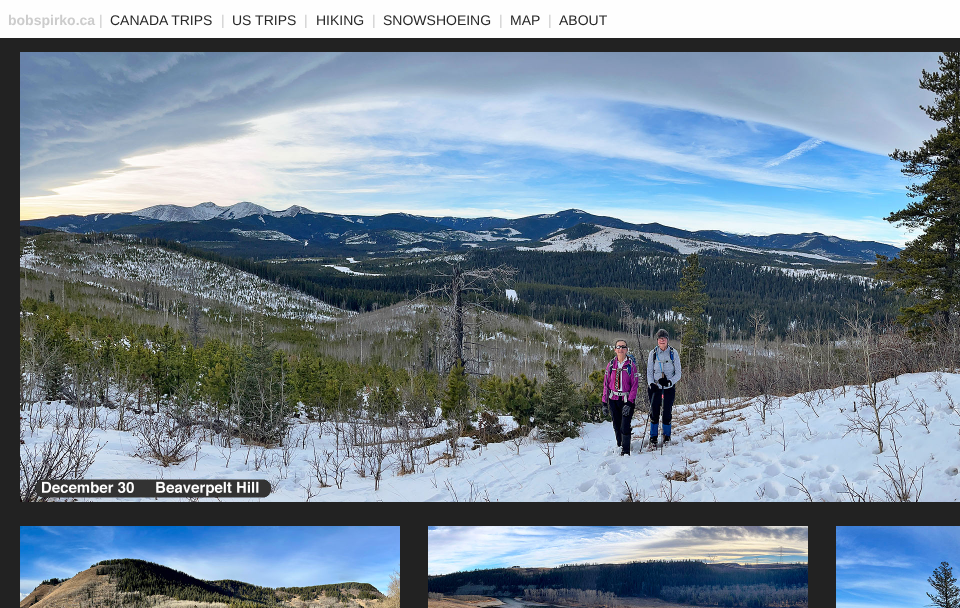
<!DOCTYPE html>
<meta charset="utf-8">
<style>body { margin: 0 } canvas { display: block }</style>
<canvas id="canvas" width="960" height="608"></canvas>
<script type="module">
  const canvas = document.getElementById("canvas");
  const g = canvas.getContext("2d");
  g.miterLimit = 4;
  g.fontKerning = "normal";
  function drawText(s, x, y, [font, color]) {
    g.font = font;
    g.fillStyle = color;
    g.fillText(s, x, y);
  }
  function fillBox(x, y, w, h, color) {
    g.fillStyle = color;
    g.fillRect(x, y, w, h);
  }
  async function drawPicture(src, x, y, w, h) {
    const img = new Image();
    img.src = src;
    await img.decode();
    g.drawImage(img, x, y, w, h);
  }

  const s1 = ["bold 14px Liberation Sans", "#CCCCCC"];
  const s2 = ["14px Liberation Sans", "#CCCCCC"];
  const s3 = ["14px Liberation Sans", "#272727"];

  fillBox(0, 0, 960, 608, "#222222");
  fillBox(0, 0, 960, 38, "#FEFEFE");
  drawText("bobspirko.ca", 8, 25, s1);
  drawText("|", 99, 25, s2);
  drawText("CANADA TRIPS", 110, 25, s3);
  drawText("|", 221, 25, s2);
  drawText("US TRIPS", 232, 25, s3);
  drawText("|", 304, 25, s2);
  drawText("HIKING", 316, 25, s3);
  drawText("|", 372, 25, s2);
  drawText("SNOWSHOEING", 383, 25, s3);
  drawText("|", 499, 25, s2);
  drawText("MAP", 510, 25, s3);
  drawText("|", 548, 25, s2);
  drawText("ABOUT", 559, 25, s3);
  await drawPicture("pic1.png", 20, 52, 940, 450);
  await drawPicture("pic2.png", 20, 526, 380, 82);
  await drawPicture("pic3.png", 428, 526, 380, 82);
  await drawPicture("pic4.png", 836, 526, 124, 82);
</script>
